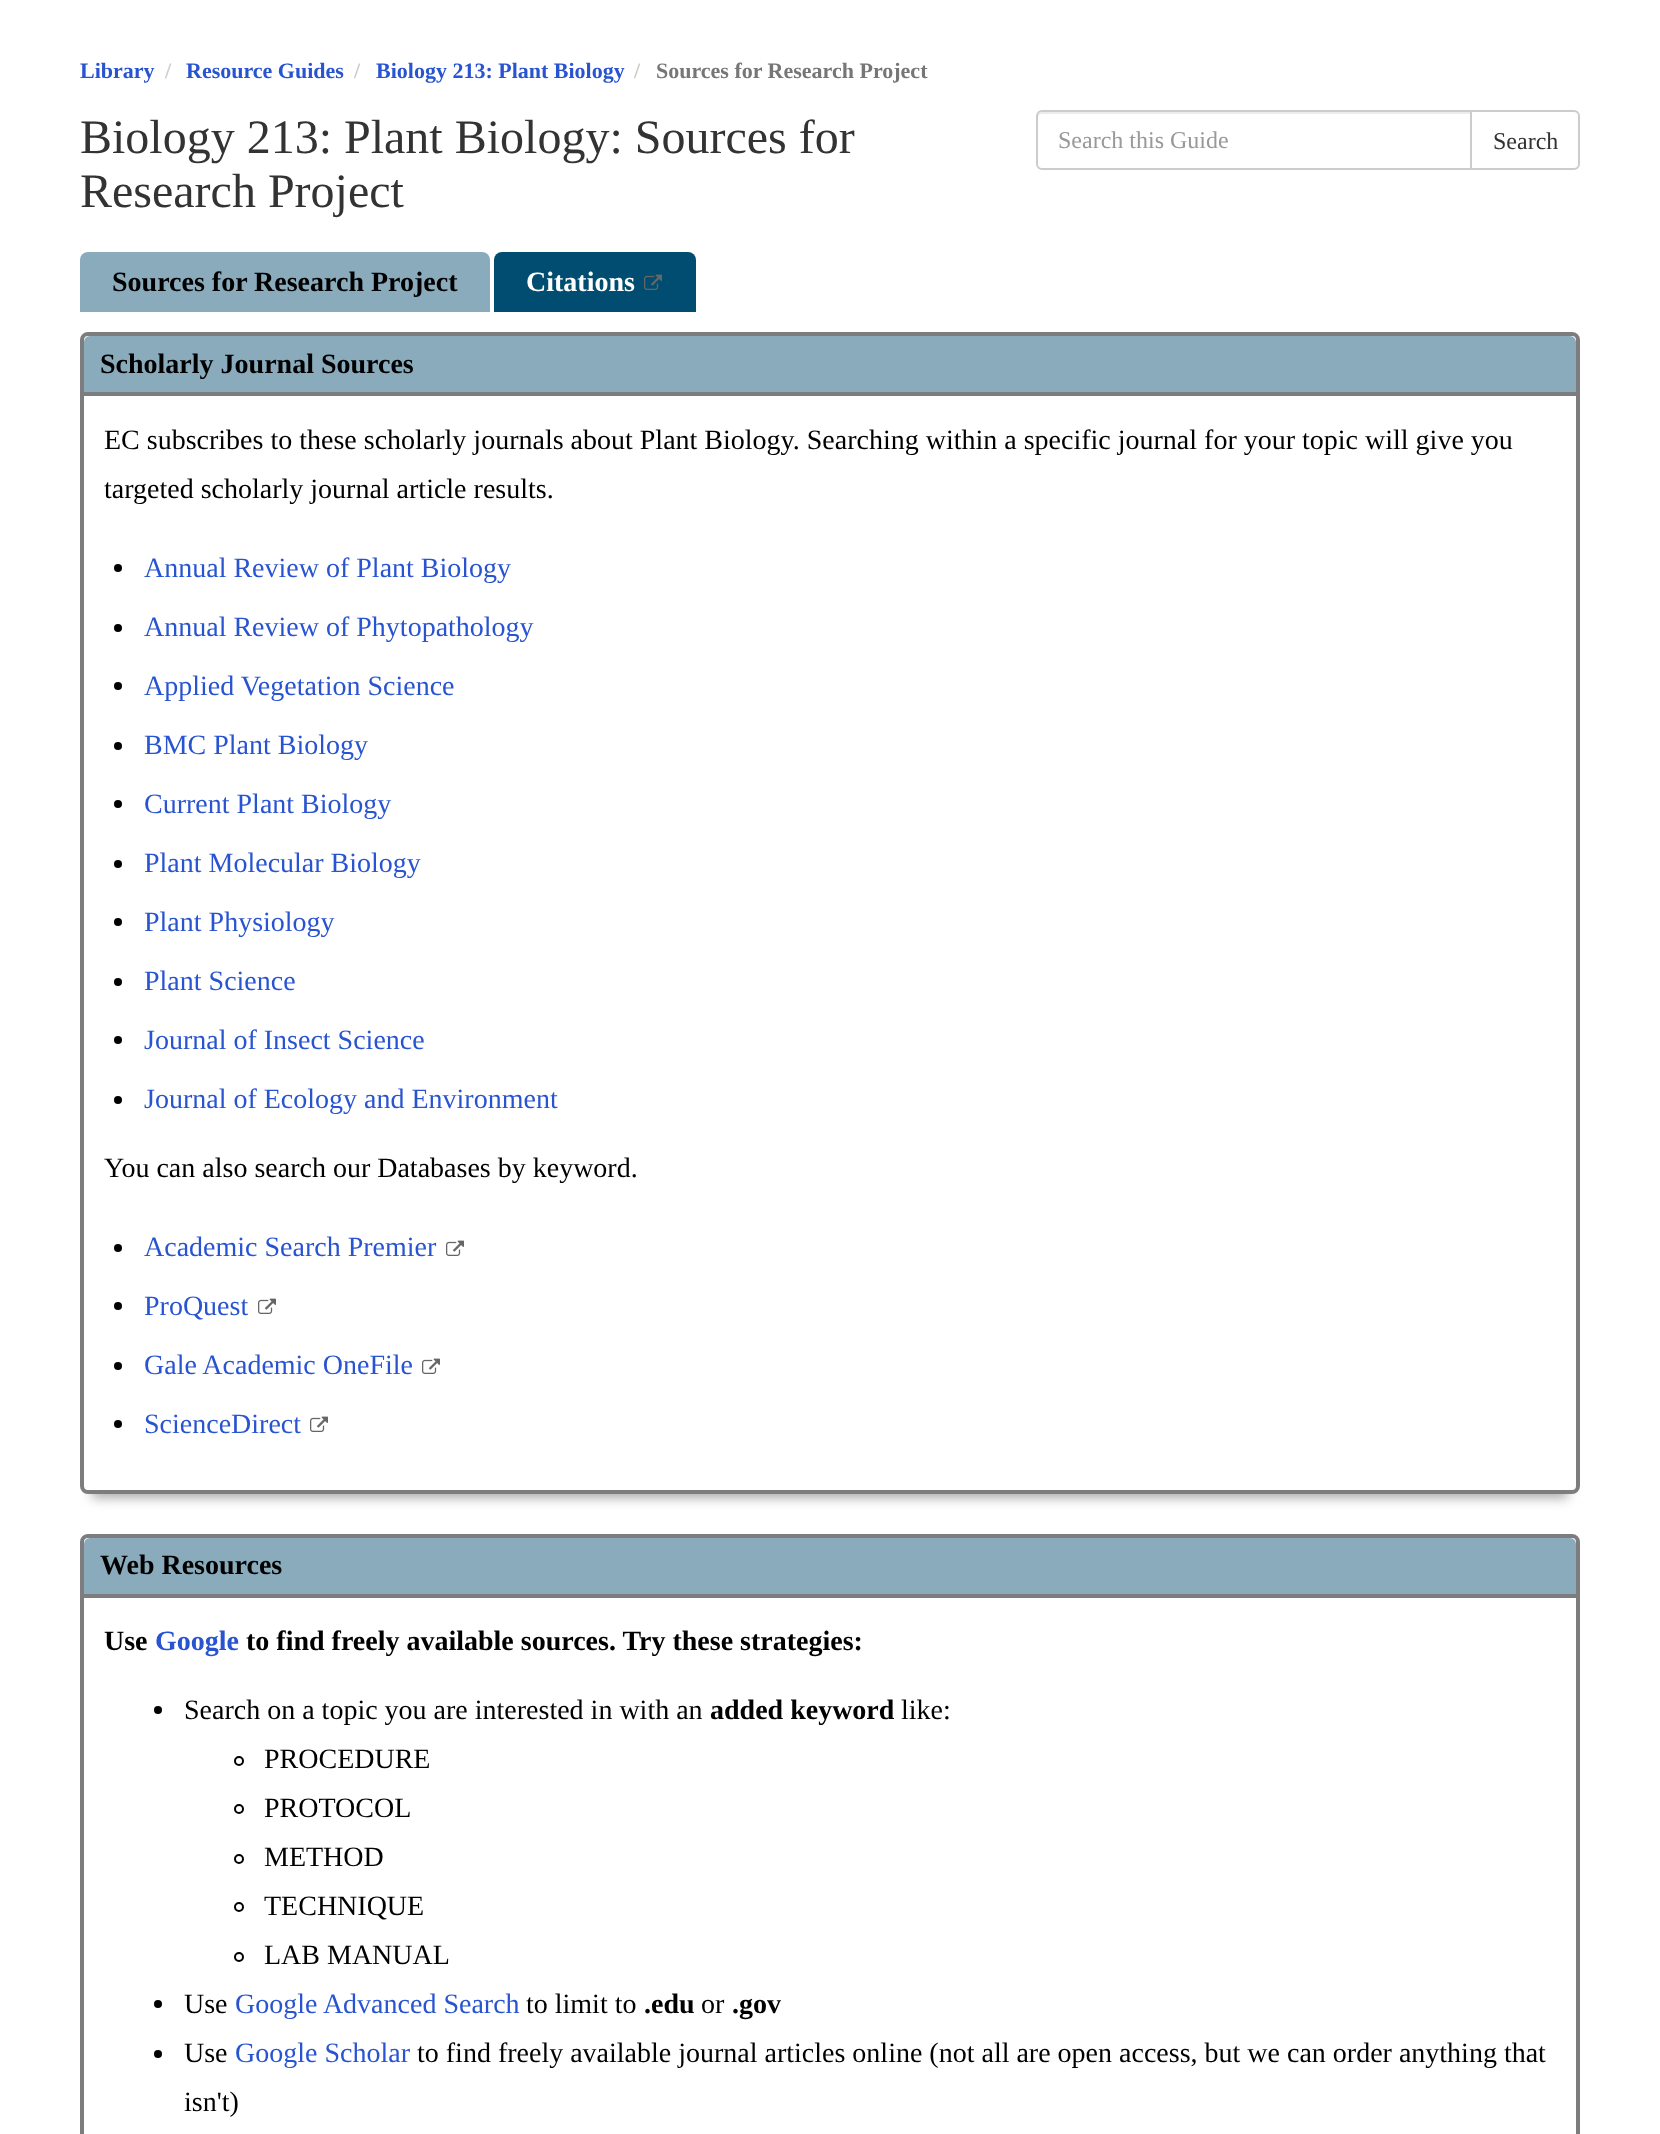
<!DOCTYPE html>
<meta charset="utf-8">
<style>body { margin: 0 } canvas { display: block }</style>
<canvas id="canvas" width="1660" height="2134"></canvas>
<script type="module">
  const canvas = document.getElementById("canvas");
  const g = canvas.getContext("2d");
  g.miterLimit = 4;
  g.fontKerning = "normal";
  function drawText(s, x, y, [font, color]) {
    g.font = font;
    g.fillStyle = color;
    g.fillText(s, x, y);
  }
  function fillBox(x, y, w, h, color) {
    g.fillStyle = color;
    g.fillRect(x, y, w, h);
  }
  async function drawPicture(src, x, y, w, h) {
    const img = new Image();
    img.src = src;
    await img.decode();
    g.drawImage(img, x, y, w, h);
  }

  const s1 = ["bold 22px Liberation Serif", "#2954D1"];
  const s2 = ["bold 22px Liberation Serif", "#CCCCCC"];
  const s3 = ["bold 22px Liberation Serif", "#767676"];
  const s4 = ["48px Liberation Serif", "#333333"];
  const s5 = ["24px Liberation Serif", "#999999"];
  const s6 = ["24px Liberation Serif", "#333333"];
  const s7 = ["bold 28px Liberation Serif", "#000000"];
  const s8 = ["bold 28px Liberation Serif", "#FFFFFF"];
  const s9 = ["28px Liberation Serif", "#000000"];
  const s10 = ["28px Liberation Serif", "#2954D1"];
  const s11 = ["bold 28px Liberation Serif", "#2954D1"];

  fillBox(0, 0, 1660, 2134, "#FFFFFF");
  drawText("Library", 80, 78, s1);
  drawText("/", 165, 78, s2);
  drawText("Resource Guides", 186, 78, s1);
  drawText("/", 354, 78, s2);
  drawText("Biology 213: Plant Biology", 376, 78, s1);
  drawText("/", 634, 78, s2);
  drawText("Sources for Research Project", 656, 78, s3);
  drawText("Biology 213: Plant Biology: Sources for", 80, 153, s4);
  drawText("Research Project", 80, 207, s4);
  g.fillStyle = "#ECECEC";
  g.beginPath();
  g.moveTo(1042, 114);
  g.lineTo(1470, 114);
  g.lineTo(1470, 112);
  g.lineTo(1042, 112);
  g.bezierCurveTo(1040, 112, 1038, 114, 1038, 116);
  g.lineTo(1038, 118);
  g.bezierCurveTo(1038, 116, 1040, 114, 1042, 114);
  g.closePath();
  g.fill();
  g.beginPath();
  g.roundRect(1037, 111, 434, 58, [5, 0, 0, 5]);
  g.strokeStyle = "#CCCCCC";
  g.lineWidth = 2;
  g.stroke();
  drawText("Search this Guide", 1058, 148, s5);
  g.fillStyle = "#FFFFFF";
  g.beginPath();
  g.roundRect(1471, 111, 108, 58, [0, 5, 5, 0]);
  g.fill();
  g.stroke();
  drawText("Search", 1493, 149, s6);
  g.fillStyle = "#89ABBC";
  g.beginPath();
  g.roundRect(80, 252, 410, 60, [8, 8, 0, 0]);
  g.fill();
  drawText("Sources for Research Project", 112, 291, s7);
  g.fillStyle = "#004D71";
  g.beginPath();
  g.roundRect(494, 252, 202, 60, [8, 8, 0, 0]);
  g.fill();
  drawText("Citations", 526, 291, s8);
  await drawPicture("pic1.png", 644, 274, 18, 16);
  g.fillStyle = "#AAAAAA";
  g.filter = "blur(6px)";
  g.beginPath();
  g.rect(92, 360, 1476, 1138);
  g.fill();
  g.filter = "none";
  g.fillStyle = "#FFFFFF";
  g.beginPath();
  g.roundRect(82, 334, 1496, 1158, 6);
  g.fill();
  g.strokeStyle = "#7D7D80";
  g.lineWidth = 4;
  g.stroke();
  g.fillStyle = "#89ABBC";
  g.beginPath();
  g.roundRect(84, 336, 1492, 60, [6, 6, 0, 0]);
  g.fill();
  fillBox(84, 392, 1492, 4, "#7D7D80");
  drawText("Scholarly Journal Sources", 100, 373, s7);
  drawText("EC subscribes to these scholarly journals about Plant Biology. Searching within a specific journal for your topic will give you", 104, 449, s9);
  drawText("targeted scholarly journal article results.", 104, 498, s9);
  g.beginPath();
  g.arc(118, 568, 4, 0, Math.PI * 2);
  g.fill();
  drawText("Annual Review of Plant Biology", 144, 577, s10);
  g.fillStyle = "#000000";
  g.beginPath();
  g.arc(118, 628, 4, 0, Math.PI * 2);
  g.fill();
  drawText("Annual Review of Phytopathology", 144, 636, s10);
  g.fillStyle = "#000000";
  g.beginPath();
  g.arc(118, 686, 4, 0, Math.PI * 2);
  g.fill();
  drawText("Applied Vegetation Science", 144, 695, s10);
  g.fillStyle = "#000000";
  g.beginPath();
  g.arc(118, 746, 4, 0, Math.PI * 2);
  g.fill();
  drawText("BMC Plant Biology", 144, 754, s10);
  g.fillStyle = "#000000";
  g.beginPath();
  g.arc(118, 804, 4, 0, Math.PI * 2);
  g.fill();
  drawText("Current Plant Biology", 144, 813, s10);
  g.fillStyle = "#000000";
  g.beginPath();
  g.arc(118, 864, 4, 0, Math.PI * 2);
  g.fill();
  drawText("Plant Molecular Biology", 144, 872, s10);
  g.fillStyle = "#000000";
  g.beginPath();
  g.arc(118, 922, 4, 0, Math.PI * 2);
  g.fill();
  drawText("Plant Physiology", 144, 931, s10);
  g.fillStyle = "#000000";
  g.beginPath();
  g.arc(118, 982, 4, 0, Math.PI * 2);
  g.fill();
  drawText("Plant Science", 144, 990, s10);
  g.fillStyle = "#000000";
  g.beginPath();
  g.arc(118, 1040, 4, 0, Math.PI * 2);
  g.fill();
  drawText("Journal of Insect Science", 144, 1049, s10);
  g.fillStyle = "#000000";
  g.beginPath();
  g.arc(118, 1100, 4, 0, Math.PI * 2);
  g.fill();
  drawText("Journal of Ecology and Environment", 144, 1108, s10);
  drawText("You can also search our Databases by keyword.", 104, 1177, s9);
  g.beginPath();
  g.arc(118, 1248, 4, 0, Math.PI * 2);
  g.fill();
  drawText("Academic Search Premier", 144, 1256, s10);
  await drawPicture("pic2.png", 446, 1240, 18, 16);
  g.fillStyle = "#000000";
  g.beginPath();
  g.arc(118, 1306, 4, 0, Math.PI * 2);
  g.fill();
  drawText("ProQuest", 144, 1315, s10);
  await drawPicture("pic2.png", 258, 1298, 18, 16);
  g.fillStyle = "#000000";
  g.beginPath();
  g.arc(118, 1366, 4, 0, Math.PI * 2);
  g.fill();
  drawText("Gale Academic OneFile", 144, 1374, s10);
  await drawPicture("pic2.png", 422, 1358, 18, 16);
  g.fillStyle = "#000000";
  g.beginPath();
  g.arc(118, 1424, 4, 0, Math.PI * 2);
  g.fill();
  drawText("ScienceDirect", 144, 1433, s10);
  await drawPicture("pic2.png", 310, 1416, 18, 16);
  g.beginPath();
  g.roundRect(82, 1536, 1496, 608, 6);
  g.stroke();
  g.fillStyle = "#89ABBC";
  g.beginPath();
  g.roundRect(84, 1538, 1492, 60, [6, 6, 0, 0]);
  g.fill();
  fillBox(84, 1594, 1492, 4, "#7D7D80");
  drawText("Web Resources", 100, 1574, s7);
  drawText("Use", 104, 1650, s7);
  drawText("Google", 155, 1650, s11);
  drawText("to find freely available sources. Try these strategies:", 246, 1650, s7);
  g.beginPath();
  g.arc(158, 1710, 4, 0, Math.PI * 2);
  g.fill();
  drawText("Search on a topic you are interested in with an", 184, 1719, s9);
  drawText("added keyword", 710, 1719, s7);
  drawText("like:", 901, 1719, s9);
  g.beginPath();
  g.arc(239, 1761, 4, 0, Math.PI * 2);
  g.strokeStyle = "#000000";
  g.lineWidth = 2;
  g.stroke();
  drawText("PROCEDURE", 264, 1768, s9);
  g.beginPath();
  g.arc(239, 1809, 4, 0, Math.PI * 2);
  g.stroke();
  drawText("PROTOCOL", 264, 1817, s9);
  g.beginPath();
  g.arc(239, 1859, 4, 0, Math.PI * 2);
  g.stroke();
  drawText("METHOD", 264, 1866, s9);
  g.beginPath();
  g.arc(239, 1907, 4, 0, Math.PI * 2);
  g.stroke();
  drawText("TECHNIQUE", 264, 1915, s9);
  g.beginPath();
  g.arc(239, 1957, 4, 0, Math.PI * 2);
  g.stroke();
  drawText("LAB MANUAL", 264, 1964, s9);
  g.beginPath();
  g.arc(158, 2004, 4, 0, Math.PI * 2);
  g.fill();
  drawText("Use", 184, 2013, s9);
  drawText("Google Advanced Search", 235, 2013, s10);
  drawText("to limit to", 526, 2013, s9);
  drawText(".edu", 644, 2013, s7);
  drawText("or", 701, 2013, s9);
  drawText(".gov", 732, 2013, s7);
  g.beginPath();
  g.arc(158, 2054, 4, 0, Math.PI * 2);
  g.fill();
  drawText("Use", 184, 2062, s9);
  drawText("Google Scholar", 235, 2062, s10);
  drawText("to find freely available journal articles online (not all are open access, but we can order anything that", 417, 2062, s9);
  drawText("isn't)", 184, 2111, s9);
</script>
